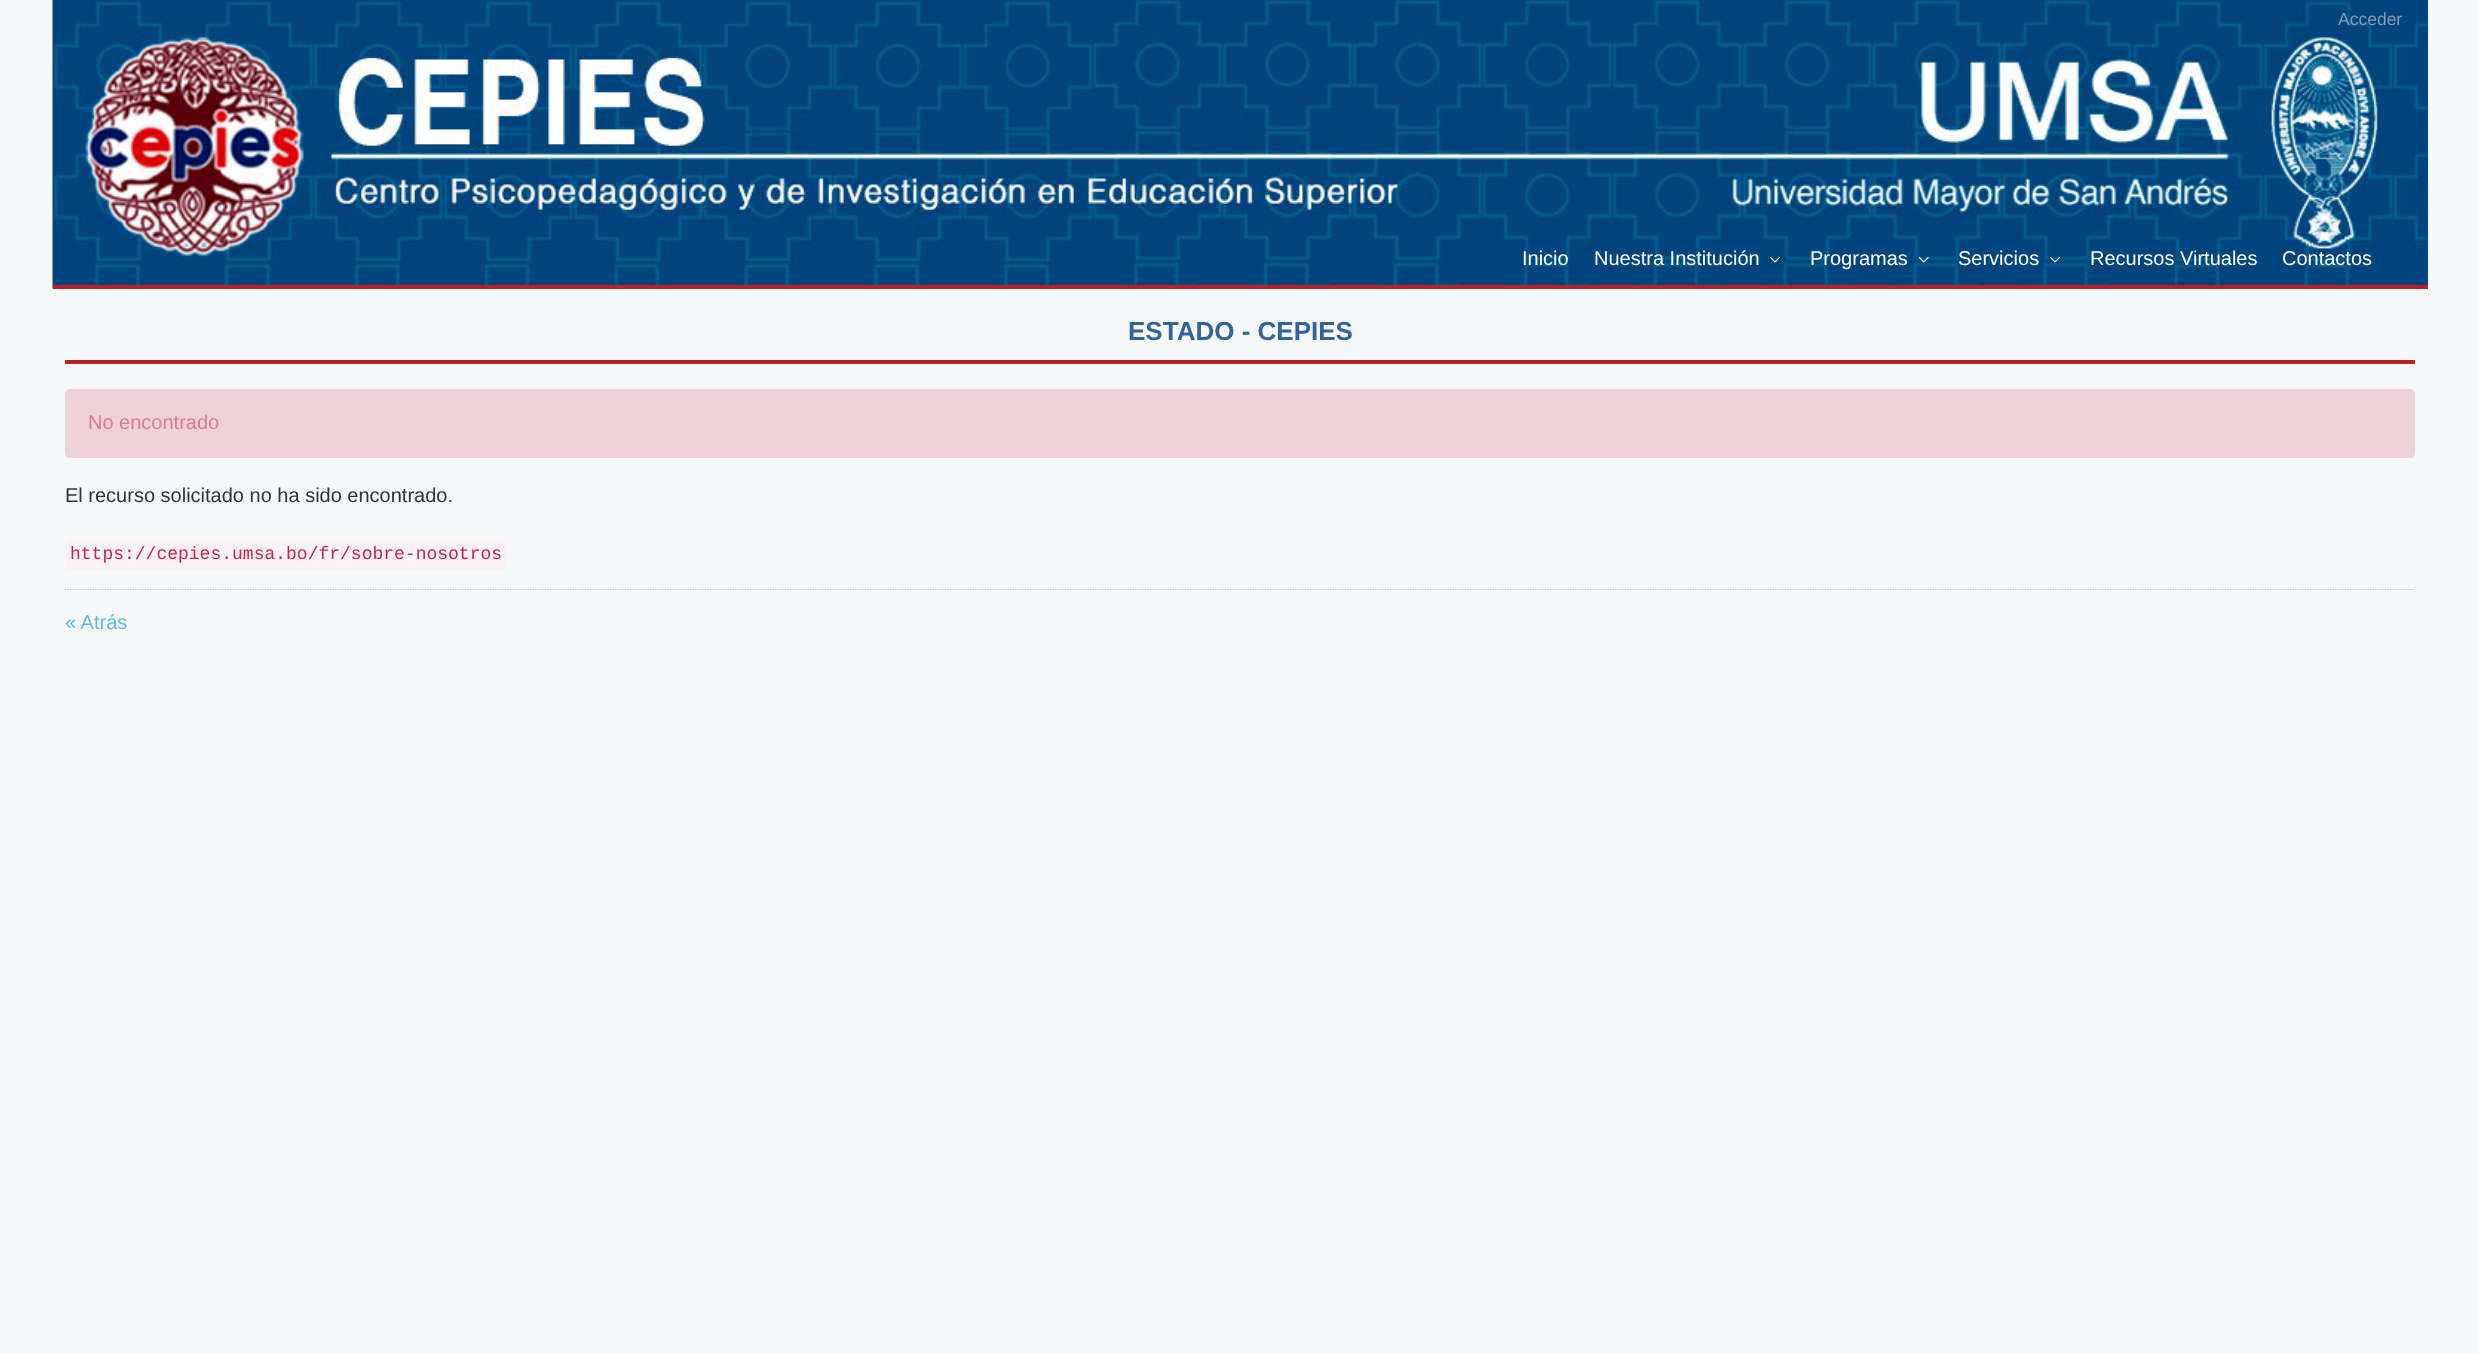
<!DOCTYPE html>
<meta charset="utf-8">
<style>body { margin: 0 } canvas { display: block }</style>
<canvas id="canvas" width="2479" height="1353"></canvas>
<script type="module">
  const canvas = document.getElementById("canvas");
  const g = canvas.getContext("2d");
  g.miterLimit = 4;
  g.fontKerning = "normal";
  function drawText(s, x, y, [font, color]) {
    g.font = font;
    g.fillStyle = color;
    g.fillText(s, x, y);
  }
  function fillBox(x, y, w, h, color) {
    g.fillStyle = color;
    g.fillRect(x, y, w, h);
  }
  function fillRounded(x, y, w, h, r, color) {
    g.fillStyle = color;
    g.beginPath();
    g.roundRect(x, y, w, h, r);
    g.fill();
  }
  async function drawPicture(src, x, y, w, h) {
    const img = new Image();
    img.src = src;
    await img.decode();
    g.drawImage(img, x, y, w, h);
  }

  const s1 = ["17.5px Liberation Sans", "#869CAD"];
  const s2 = ["20px Liberation Sans", "#FFFFFF"];
  const s3 = ["bold 26px Liberation Sans", "#32639E"];
  const s4 = ["20px Liberation Sans", "#D77C8A"];
  const s5 = ["20px Liberation Sans", "#29353D"];
  const s6 = ["18px Liberation Mono", "#C7254E"];
  const s7 = ["20px Liberation Sans", "#65B6F0"];

  fillBox(0, 0, 2479, 1353, "#F5F7F8");
  fillBox(2427, 0, 1, 285, "#00447D");
  await drawPicture("pic1.png", 52, 0, 2376, 289);
  fillBox(53, 285, 2375, 4, "#BB2026");
  drawText("Acceder", 2338, 25, s1);
  drawText("Inicio", 1522, 265, s2);
  drawText("Nuestra Institución", 1594, 265, s2);
  await drawPicture("pic2.png", 1770, 257, 10, 6);
  drawText("Programas", 1810, 265, s2);
  await drawPicture("pic3.png", 1919, 257, 10, 6);
  drawText("Servicios", 1958, 265, s2);
  await drawPicture("pic4.png", 2050, 257, 10, 6);
  drawText("Recursos Virtuales", 2090, 265, s2);
  drawText("Contactos", 2282, 265, s2);
  fillBox(65, 360, 2350, 4, "#BB2026");
  drawText("ESTADO - CEPIES", 1128, 340, s3);
  fillRounded(65, 389, 2350, 69, 5, "#F1D1D8");
  drawText("No encontrado", 88, 429, s4);
  drawText("El recurso solicitado no ha sido encontrado.", 65, 502, s5);
  fillRounded(65, 539, 441, 31, 5, "#F9F2F4");
  drawText("https://cepies.umsa.bo/fr/sobre-nosotros", 70, 559, s6);
  g.beginPath();
  g.moveTo(65, 589.5);
  g.lineTo(2415, 589.5);
  g.strokeStyle = "#BFBFBF";
  g.lineWidth = 1.2;
  g.setLineDash([1.25, 1.25]);
  g.stroke();
  drawText("« Atrás", 65, 629, s7);
</script>
